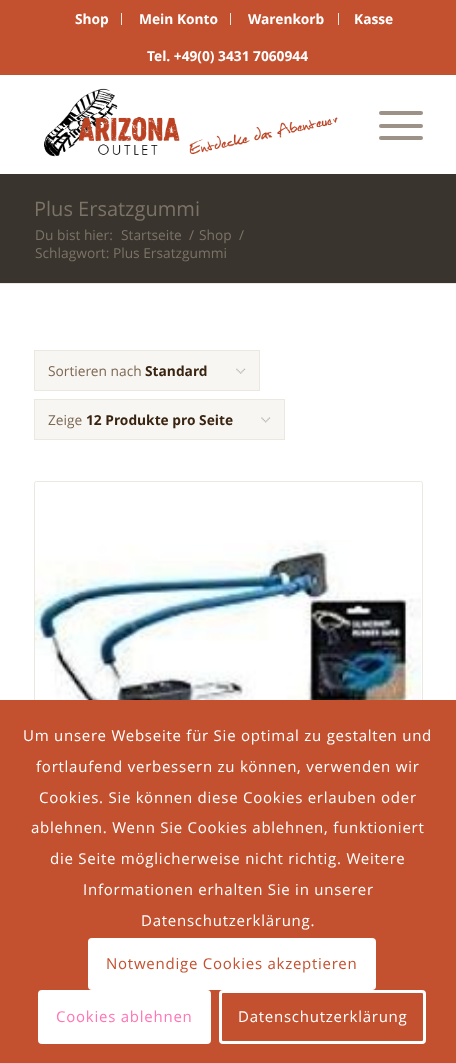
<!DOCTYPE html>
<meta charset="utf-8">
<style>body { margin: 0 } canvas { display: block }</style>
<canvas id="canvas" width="456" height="1063"></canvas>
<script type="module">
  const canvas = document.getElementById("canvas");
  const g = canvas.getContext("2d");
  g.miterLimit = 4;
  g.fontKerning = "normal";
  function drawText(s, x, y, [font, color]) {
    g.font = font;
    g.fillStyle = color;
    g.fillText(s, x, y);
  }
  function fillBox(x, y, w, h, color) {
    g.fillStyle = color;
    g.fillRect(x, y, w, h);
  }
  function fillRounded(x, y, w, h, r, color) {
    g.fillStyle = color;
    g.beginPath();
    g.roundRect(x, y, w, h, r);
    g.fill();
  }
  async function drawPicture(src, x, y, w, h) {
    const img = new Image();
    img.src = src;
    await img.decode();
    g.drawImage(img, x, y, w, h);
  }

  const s1 = ["bold 13.75px Open Sans", "#FFFFFF"];
  const s2 = ["20px Open Sans", "#7B7368"];
  const s3 = ["13.75px Open Sans", "#7B7368"];
  const s4 = ["13.75px Open Sans", "#7C6853"];
  const s5 = ["bold 13.75px Open Sans", "#382410"];
  const s6 = ["15px Open Sans", "#FFFFFF"];
  const s7 = ["15px Open Sans", "#C3512F"];
  const s8 = ["15px Open Sans", "#FF75B5"];

  fillBox(0, 0, 456, 1063, "#FFFFFF");
  fillBox(0, 0, 456, 75, "#C3512F");
  fillBox(121, 13, 1, 12, "#EBE8E2");
  drawText("Shop", 75, 24, s1);
  fillBox(230, 13, 1, 12, "#EBE8E2");
  drawText("Mein Konto", 139, 24, s1);
  fillBox(338, 13, 1, 12, "#EBE8E2");
  drawText("Warenkorb", 248, 24, s1);
  drawText("Kasse", 354, 24, s1);
  drawText("Tel. +49(0) 3431 7060944", 147, 61, s1);
  await drawPicture("pic1.png", 44, 88, 294, 69);
  await drawPicture("pic2.png", 330, 119, 6, 5);
  fillRounded(379, 124, 44, 4, 2, "#9C9288");
  fillRounded(379, 111, 44, 4, 2, "#9C9288");
  fillRounded(379, 136, 44, 4, 2, "#9C9288");
  fillBox(0, 174, 456, 109, "#39342D");
  drawText("Plus Ersatzgummi", 34, 216, s2);
  drawText("Du bist hier:", 35, 240, s3);
  drawText("Startseite", 121, 240, s3);
  drawText("/", 189, 240, s3);
  drawText("Shop", 199, 240, s3);
  drawText("/", 239, 240, s3);
  drawText("Schlagwort: Plus Ersatzgummi", 35, 258, s3);
  fillBox(0, 283, 456, 1, "#EBE8E2");
  fillBox(35, 351, 224, 39, "#F8F6F2");
  await drawPicture("pic3.png", 236, 368, 10, 7);
  g.strokeStyle = "#EBE8E2";
  g.strokeRect(34.5, 350.5, 225, 40);
  drawText("Sortieren nach", 48, 376, s4);
  drawText("Standard", 145, 376, s5);
  fillBox(35, 400, 249, 39, "#F8F6F2");
  await drawPicture("pic4.png", 261, 417, 10, 6);
  g.strokeRect(34.5, 399.5, 250, 40);
  drawText("Zeige", 48, 425, s4);
  drawText("12 Produkte pro Seite", 86, 425, s5);
  g.beginPath();
  g.roundRect(34.5, 481.5, 388, 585, 2);
  g.stroke();
  await drawPicture("pic5.png", 35, 540, 386, 160);
  fillBox(0, 700, 456, 363, "#C3512F");
  g.letterSpacing = "0.75px";
  drawText("Um unsere Webseite für Sie optimal zu gestalten und", 23, 741, s6);
  drawText("fortlaufend verbessern zu können, verwenden wir", 36, 772, s6);
  drawText("Cookies. Sie können diese Cookies erlauben oder", 39, 803, s6);
  drawText("ablehnen. Wenn Sie Cookies ablehnen, funktioniert", 31, 833, s6);
  drawText("die Seite möglicherweise nicht richtig. Weitere", 50, 864, s6);
  drawText("Informationen erhalten Sie in unserer", 83, 895, s6);
  drawText("Datenschutzerklärung.", 141, 926, s6);
  fillRounded(88, 938, 288, 52, 4, "#FFFFFF");
  drawText("Notwendige Cookies akzeptieren", 106, 969, s7);
  g.fillStyle = "#FFFFFF";
  g.beginPath();
  g.roundRect(39.5, 991.5, 170, 51, 2.5);
  g.fill();
  g.strokeStyle = "#FFFFFF";
  g.lineWidth = 3;
  g.stroke();
  drawText("Cookies ablehnen", 56, 1022, s8);
  g.beginPath();
  g.roundRect(220.5, 991.5, 204, 51, 2.5);
  g.stroke();
  drawText("Datenschutzerklärung", 238, 1022, s6);
</script>
